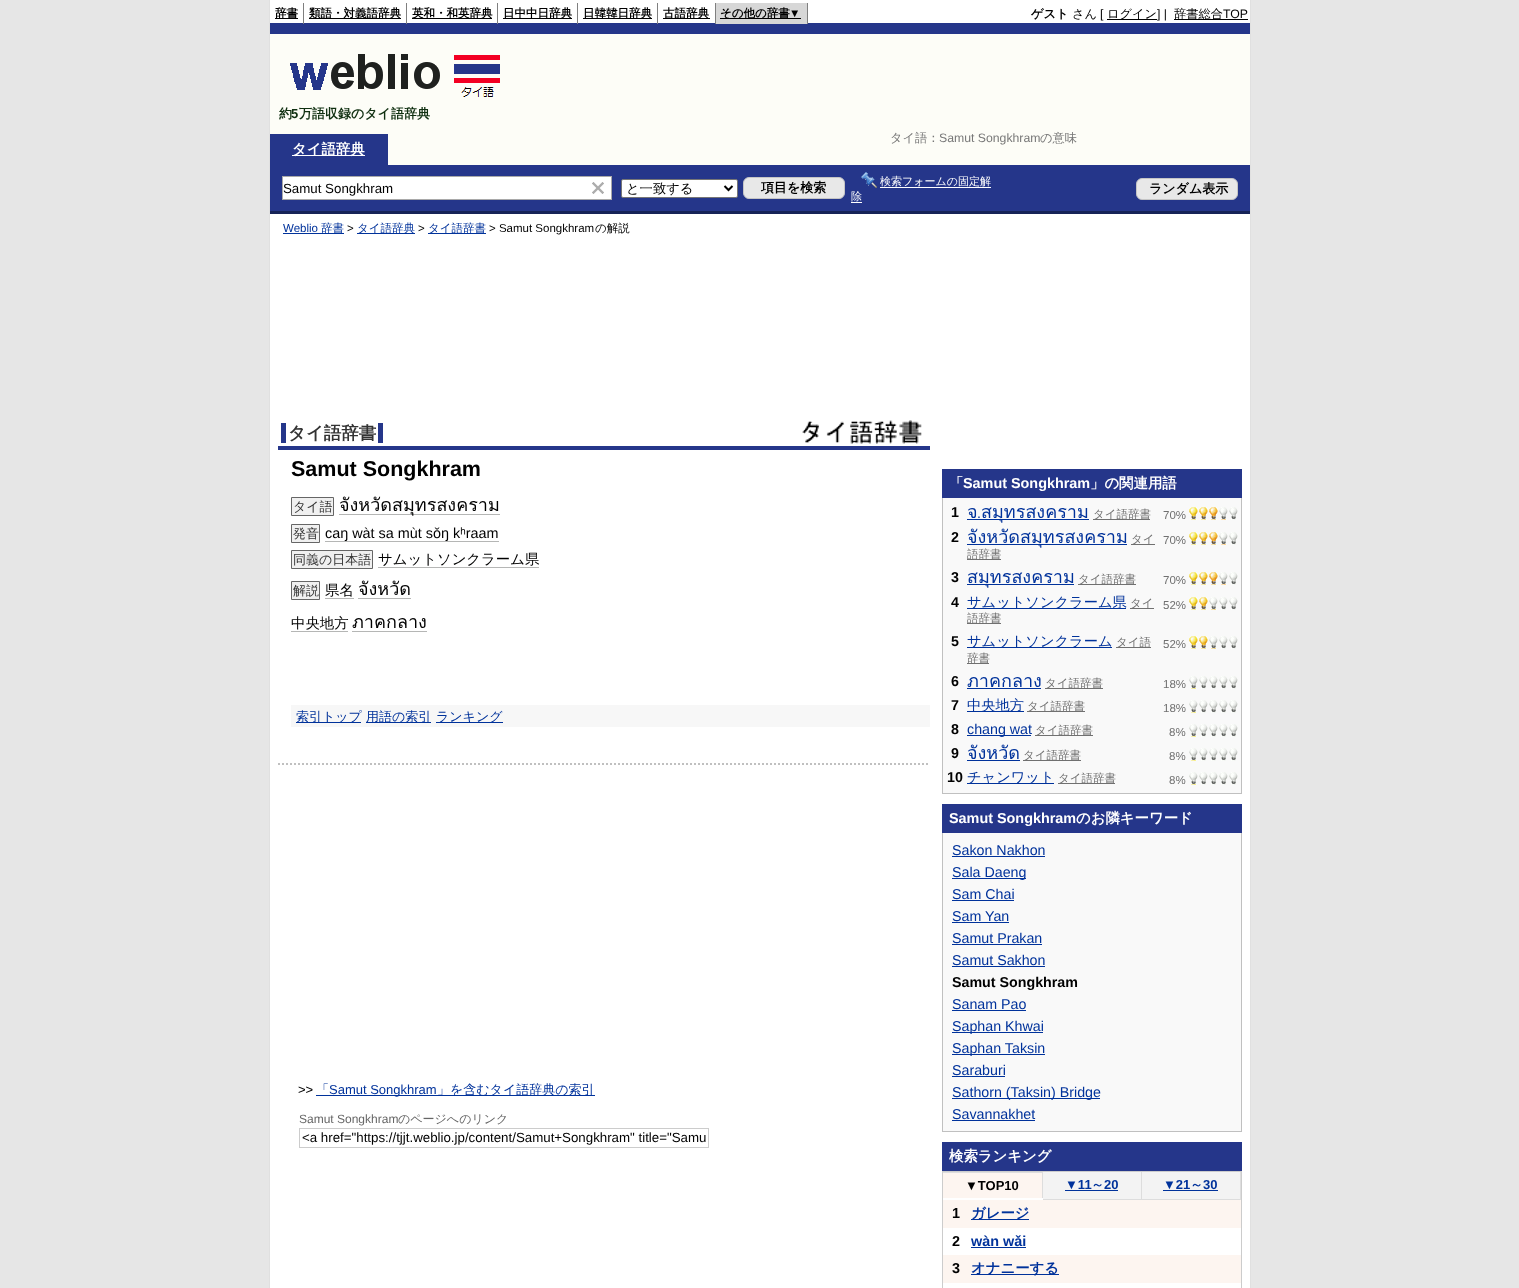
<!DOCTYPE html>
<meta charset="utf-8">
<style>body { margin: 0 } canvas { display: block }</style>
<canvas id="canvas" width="1519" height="1288"></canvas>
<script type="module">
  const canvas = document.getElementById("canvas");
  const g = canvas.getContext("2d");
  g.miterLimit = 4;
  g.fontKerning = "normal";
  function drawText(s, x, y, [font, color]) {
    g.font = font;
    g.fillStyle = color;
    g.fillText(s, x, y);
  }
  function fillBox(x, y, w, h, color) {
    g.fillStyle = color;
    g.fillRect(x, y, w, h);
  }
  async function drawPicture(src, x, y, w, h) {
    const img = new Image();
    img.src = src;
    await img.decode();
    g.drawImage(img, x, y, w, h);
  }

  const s1 = ["bold 11.5px WenQuanYi Zen Hei", "#000000"];
  const s2 = ["bold 11.5px Liberation Sans", "#000000"];
  const s3 = ["bold 12.25px WenQuanYi Zen Hei", "#000000"];
  const s4 = ["500 12.25px WenQuanYi Zen Hei", "#000000"];
  const s5 = ["12.25px Liberation Sans", "#000000"];
  const s6 = ["bold 13px WenQuanYi Zen Hei", "#103011"];
  const s7 = ["bold 13px Liberation Sans", "#103011"];
  const s8 = ["500 12.25px WenQuanYi Zen Hei", "#777777"];
  const s9 = ["12.25px Liberation Sans", "#777777"];
  const s10 = ["bold 14.4px WenQuanYi Zen Hei", "#FFFFFF"];
  const s11 = ["13.3px Liberation Sans", "#000000"];
  const s12 = ["500 13.3px WenQuanYi Zen Hei", "#000000"];
  const s13 = ["bold 13px WenQuanYi Zen Hei", "#000000"];
  const s14 = ["500 11px WenQuanYi Zen Hei", "#FFFFFF"];
  const s15 = ["11.5px Liberation Sans", "#00329B"];
  const s16 = ["500 11.5px WenQuanYi Zen Hei", "#00329B"];
  const s17 = ["11.5px Liberation Sans", "#000000"];
  const s18 = ["500 11.5px WenQuanYi Zen Hei", "#000000"];
  const s19 = ["bold 17.5px WenQuanYi Zen Hei", "#333333"];
  const s20 = ["bold 21.5px Liberation Sans", "#000000"];
  const s21 = ["500 13px WenQuanYi Zen Hei", "#333333"];
  const s22 = ["18px Loma", "#000000"];
  const s23 = ["14.4px Liberation Sans", "#000000"];
  const s24 = ["500 14.4px WenQuanYi Zen Hei", "#000000"];
  const s25 = ["500 13px WenQuanYi Zen Hei", "#00329B"];
  const s26 = ["13px Liberation Sans", "#000000"];
  const s27 = ["13px Liberation Sans", "#00329B"];
  const s28 = ["12px Liberation Sans", "#666666"];
  const s29 = ["500 12px WenQuanYi Zen Hei", "#666666"];
  const s30 = ["bold 14.4px Liberation Sans", "#FFFFFF"];
  const s31 = ["bold 14.25px Liberation Sans", "#000000"];
  const s32 = ["18px Loma", "#00329B"];
  const s33 = ["14.25px Liberation Sans", "#00329B"];
  const s34 = ["500 11.5px WenQuanYi Zen Hei", "#707070"];
  const s35 = ["11.5px Liberation Sans", "#707070"];
  const s36 = ["500 14.25px WenQuanYi Zen Hei", "#00329B"];
  const s37 = ["bold 13px Liberation Sans", "#000000"];
  const s38 = ["bold 13px Liberation Sans", "#00329B"];
  const s39 = ["bold 13px WenQuanYi Zen Hei", "#00329B"];
  const s40 = ["bold 14.4px Liberation Sans", "#000000"];
  const s41 = ["bold 14.4px WenQuanYi Zen Hei", "#00329B"];
  const s42 = ["bold 14.4px Liberation Sans", "#00329B"];

  fillBox(0, 0, 1519, 1288, "#E6E6E6");
  fillBox(270, 0, 980, 1288, "#FFFFFF");
  fillBox(1250, 0, 1, 1288, "#E0E0E0");
  fillBox(269, 0, 1, 1288, "#E0E0E0");
  fillBox(270, 23, 980, 11, "#25368A");
  fillBox(303, 3, 1, 21, "#7F7F7F");
  fillBox(275, 18, 23, 1, "#000000");
  drawText("辞書", 275, 17, s1);
  fillBox(406, 3, 1, 21, "#7F7F7F");
  fillBox(309, 18, 92, 1, "#000000");
  drawText("類語・対義語辞典", 309, 17, s1);
  fillBox(497, 3, 1, 21, "#7F7F7F");
  fillBox(412, 18, 80, 1, "#000000");
  drawText("英和・和英辞典", 412, 17, s1);
  fillBox(577, 3, 1, 21, "#7F7F7F");
  fillBox(503, 18, 69, 1, "#000000");
  drawText("日中中日辞典", 503, 17, s1);
  fillBox(657, 3, 1, 21, "#7F7F7F");
  fillBox(583, 18, 69, 1, "#000000");
  drawText("日韓韓日辞典", 583, 17, s1);
  fillBox(715, 3, 1, 21, "#7F7F7F");
  fillBox(663, 18, 47, 1, "#000000");
  drawText("古語辞典", 663, 17, s1);
  fillBox(716, 3, 91, 21, "#D7D7D7");
  fillBox(807, 3, 1, 21, "#7F7F7F");
  fillBox(720, 18, 81, 1, "#000000");
  drawText("その他の辞書", 720, 17, s1);
  drawText("▼", 789, 17, s2);
  drawText("ゲスト", 1031, 18, s3);
  drawText("さん", 1072, 18, s4);
  drawText("[", 1100, 18, s5);
  fillBox(1107, 19, 50, 1, "#000000");
  drawText("ログイン", 1107, 18, s4);
  drawText("] |", 1157, 18, s5);
  fillBox(1174, 19, 74, 1, "#000000");
  drawText("辞書総合", 1174, 18, s4);
  drawText("TOP", 1223, 18, s5);
  fillBox(270, 34, 980, 100, "#FDFDF7");
  await drawPicture("pic1.png", 290, 54, 210, 43);
  drawText("約", 279, 118, s6);
  drawText("5", 291, 118, s7);
  drawText("万語収録のタイ語辞典", 299, 118, s6);
  fillBox(388, 134, 862, 31, "#FDFDF7");
  drawText("タイ語：", 890, 142, s8);
  drawText("Samut Songkhram", 939, 142, s9);
  drawText("の意味", 1040, 142, s8);
  fillBox(270, 134, 118, 31, "#25368A");
  fillBox(292, 155, 73, 1, "#FFFFFF");
  drawText("タイ語辞典", 292, 154, s10);
  fillBox(270, 165, 980, 46, "#25368A");
  fillBox(270, 211, 980, 3, "#172357");
  fillBox(283, 177, 328, 22, "#FFFFFF");
  fillBox(282, 176, 330, 1, "#A9A9A9");
  fillBox(611, 176, 1, 24, "#A9A9A9");
  fillBox(282, 199, 330, 1, "#A9A9A9");
  fillBox(282, 176, 1, 24, "#A9A9A9");
  drawText("Samut Songkhram", 283, 193, s11);
  await drawPicture("pic2.png", 592, 182, 12, 12);
  g.fillStyle = "#FFFFFF";
  g.beginPath();
  g.roundRect(621.5, 179.5, 116, 18, 1.5);
  g.fill();
  g.strokeStyle = "#767676";
  g.stroke();
  g.beginPath();
  g.moveTo(724.5, 186);
  g.lineTo(728.5, 190);
  g.lineTo(732.5, 186);
  g.strokeStyle = "#000000";
  g.lineWidth = 2;
  g.stroke();
  drawText("と一致する", 626, 193, s12);
  g.fillStyle = "#E8E8E8";
  g.beginPath();
  g.roundRect(743.5, 177.5, 101, 21, 5.5);
  g.fill();
  g.strokeStyle = "#C5C5C5";
  g.lineWidth = 1;
  g.stroke();
  drawText("項目を検索", 761, 192, s13);
  await drawPicture("pic3.png", 861, 172, 16, 16);
  drawText("検索フォームの固定解", 880, 185, s14);
  fillBox(880, 187, 111, 1, "#FFFFFF");
  drawText("除", 851, 200, s14);
  fillBox(851, 202, 11, 1, "#FFFFFF");
  g.fillStyle = "#E8E8E8";
  g.beginPath();
  g.roundRect(1136.5, 178.5, 101, 21, 5.5);
  g.fill();
  g.stroke();
  drawText("ランダム表示", 1149, 193, s13);
  drawText("Weblio", 283, 232, s15);
  fillBox(283, 233, 61, 1, "#00329B");
  drawText("辞書", 321, 232, s16);
  drawText(">", 347, 232, s17);
  fillBox(357, 233, 58, 1, "#00329B");
  drawText("タイ語辞典", 357, 232, s16);
  drawText(">", 418, 232, s17);
  fillBox(428, 233, 58, 1, "#00329B");
  drawText("タイ語辞書", 428, 232, s16);
  drawText("> Samut Songkhram", 489, 232, s17);
  drawText("の解説", 595, 232, s18);
  fillBox(278, 446, 652, 4, "#25368A");
  drawText("タイ語辞書", 288, 439, s19);
  fillBox(378, 423, 5, 20, "#25368A");
  fillBox(281, 423, 5, 20, "#25368A");
  await drawPicture("pic4.png", 802, 420, 120, 24);
  drawText("Samut Songkhram", 291, 476, s20);
  g.fillStyle = "#F0F0F0";
  g.beginPath();
  g.rect(291.5, 497.5, 42, 18);
  g.fill();
  g.strokeStyle = "#666666";
  g.stroke();
  drawText("タイ語", 293, 511, s21);
  fillBox(339, 514, 161, 1, "#B5B6B5");
  drawText("จังหวัดสมุทรสงคราม", 339, 511, s22);
  g.fillStyle = "#F0F0F0";
  g.beginPath();
  g.rect(291.5, 524.5, 28, 18);
  g.fill();
  g.stroke();
  drawText("発音", 293, 538, s21);
  drawText("caŋ wàt sa mùt sǒŋ kʰraam", 325, 538, s23);
  fillBox(325, 541, 174, 1, "#B5B6B5");
  g.fillStyle = "#F0F0F0";
  g.beginPath();
  g.rect(291.5, 550.5, 81, 18);
  g.fill();
  g.stroke();
  drawText("同義の日本語", 293, 564, s21);
  drawText("サムットソンクラーム県", 378, 564, s24);
  fillBox(378, 567, 161, 1, "#B5B6B5");
  g.fillStyle = "#F0F0F0";
  g.beginPath();
  g.rect(291.5, 581.5, 28, 18);
  g.fill();
  g.stroke();
  drawText("解説", 293, 595, s21);
  drawText("県名", 325, 595, s24);
  fillBox(325, 598, 29, 1, "#B5B6B5");
  drawText("จังหวัด", 358, 595, s22);
  fillBox(358, 598, 53, 1, "#B5B6B5");
  drawText("中央地方", 291, 628, s24);
  fillBox(291, 631, 57, 1, "#B5B6B5");
  drawText("ภาคกลาง", 352, 628, s22);
  fillBox(352, 631, 75, 1, "#B5B6B5");
  fillBox(291, 705, 639, 22, "#F7F7F7");
  fillBox(296, 722, 65, 1, "#00329B");
  drawText("索引トップ", 296, 721, s25);
  fillBox(366, 722, 65, 1, "#00329B");
  drawText("用語の索引", 366, 721, s25);
  fillBox(436, 722, 67, 1, "#00329B");
  drawText("ランキング", 436, 721, s25);
  g.beginPath();
  g.moveTo(278, 764);
  g.lineTo(930, 764);
  g.strokeStyle = "#C0C0C0";
  g.lineWidth = 2;
  g.setLineDash([2, 2]);
  g.stroke();
  drawText(">>", 298, 1094, s26);
  drawText("「", 316, 1094, s25);
  fillBox(316, 1095, 279, 1, "#00329B");
  drawText("Samut Songkhram", 329, 1094, s27);
  drawText("」を含むタイ語辞典の索引", 437, 1094, s25);
  drawText("Samut Songkhram", 299, 1123, s28);
  drawText("のページへのリンク", 398, 1123, s29);
  g.strokeStyle = "#CCCCCC";
  g.lineWidth = 1;
  g.setLineDash([]);
  g.strokeRect(299.5, 1128.5, 409, 19);
  g.save();
  g.beginPath();
  g.rect(302, 1130, 404, 15);
  g.clip();
  drawText("<a href=\"https://tjjt.weblio.jp/content/Samut+Songkhram\" title=\"Samu", 302, 1142, s11);
  g.restore();
  fillBox(942, 469, 300, 29, "#25368A");
  drawText("「", 949, 488, s10);
  drawText("Samut Songkhram", 963, 488, s30);
  drawText("」の関連用語", 1090, 488, s10);
  fillBox(943, 498, 298, 295, "#F9F9F9");
  fillBox(1241, 498, 1, 296, "#C0C0C0");
  fillBox(942, 793, 300, 1, "#C0C0C0");
  fillBox(942, 498, 1, 296, "#C0C0C0");
  drawText("1", 951, 517, s31);
  drawText("จ", 967, 518, s32);
  drawText(".", 977, 518, s33);
  fillBox(967, 519, 122, 1, "#00329B");
  drawText("สมุทรสงคราม", 981, 518, s32);
  fillBox(1093, 519, 57, 1, "#707070");
  drawText("タイ語辞書", 1093, 518, s34);
  drawText("70%", 1163, 519, s35);
  await drawPicture("pic5.png", 1189, 507, 49, 13);
  drawText("2", 951, 542, s31);
  fillBox(967, 544, 160, 1, "#00329B");
  drawText("จังหวัดสมุทรสงคราม", 967, 543, s32);
  fillBox(1131, 544, 24, 1, "#707070");
  drawText("タイ", 1131, 543, s34);
  fillBox(967, 559, 34, 1, "#707070");
  drawText("語辞書", 967, 558, s34);
  drawText("70%", 1163, 544, s35);
  await drawPicture("pic5.png", 1189, 532, 49, 13);
  drawText("3", 951, 582, s31);
  fillBox(967, 584, 107, 1, "#00329B");
  drawText("สมุทรสงคราม", 967, 583, s32);
  fillBox(1078, 584, 58, 1, "#707070");
  drawText("タイ語辞書", 1078, 583, s34);
  drawText("70%", 1163, 584, s35);
  await drawPicture("pic5.png", 1189, 572, 49, 13);
  drawText("4", 951, 607, s31);
  fillBox(967, 608, 159, 1, "#00329B");
  drawText("サムットソンクラーム県", 967, 607, s36);
  fillBox(1130, 608, 24, 1, "#707070");
  drawText("タイ", 1130, 607, s34);
  fillBox(967, 623, 34, 1, "#707070");
  drawText("語辞書", 967, 622, s34);
  drawText("52%", 1163, 609, s35);
  await drawPicture("pic6.png", 1189, 597, 49, 13);
  drawText("5", 951, 646, s31);
  fillBox(967, 647, 145, 1, "#00329B");
  drawText("サムットソンクラーム", 967, 646, s36);
  fillBox(1116, 647, 35, 1, "#707070");
  drawText("タイ語", 1116, 646, s34);
  fillBox(967, 663, 22, 1, "#707070");
  drawText("辞書", 967, 662, s34);
  drawText("52%", 1163, 648, s35);
  await drawPicture("pic6.png", 1189, 636, 49, 13);
  drawText("6", 951, 686, s31);
  drawText("ภาคกลาง", 967, 687, s32);
  fillBox(967, 688, 74, 1, "#00329B");
  fillBox(1045, 688, 58, 1, "#707070");
  drawText("タイ語辞書", 1045, 687, s34);
  drawText("18%", 1163, 688, s35);
  await drawPicture("pic7.png", 1189, 676, 49, 13);
  drawText("7", 951, 710, s31);
  fillBox(967, 711, 57, 1, "#00329B");
  drawText("中央地方", 967, 710, s36);
  fillBox(1027, 711, 58, 1, "#707070");
  drawText("タイ語辞書", 1027, 710, s34);
  drawText("18%", 1163, 712, s35);
  await drawPicture("pic7.png", 1189, 700, 49, 13);
  drawText("8", 951, 734, s31);
  fillBox(967, 735, 64, 1, "#00329B");
  drawText("chang wat", 967, 734, s33);
  fillBox(1035, 735, 58, 1, "#707070");
  drawText("タイ語辞書", 1035, 734, s34);
  drawText("8%", 1169, 736, s35);
  await drawPicture("pic7.png", 1189, 724, 49, 13);
  drawText("9", 951, 758, s31);
  drawText("จังหวัด", 967, 759, s32);
  fillBox(967, 760, 53, 1, "#00329B");
  fillBox(1023, 760, 58, 1, "#707070");
  drawText("タイ語辞書", 1023, 759, s34);
  drawText("8%", 1169, 760, s35);
  await drawPicture("pic7.png", 1189, 748, 49, 13);
  drawText("10", 947, 782, s31);
  fillBox(967, 783, 87, 1, "#00329B");
  drawText("チャンワット", 967, 782, s36);
  fillBox(1058, 783, 57, 1, "#707070");
  drawText("タイ語辞書", 1058, 782, s34);
  drawText("8%", 1169, 784, s35);
  await drawPicture("pic7.png", 1189, 772, 49, 13);
  fillBox(942, 804, 300, 29, "#25368A");
  drawText("Samut Songkhram", 949, 823, s30);
  drawText("のお隣キーワード", 1076, 823, s10);
  fillBox(943, 833, 298, 298, "#F9F9F9");
  fillBox(1241, 833, 1, 299, "#C0C0C0");
  fillBox(942, 1131, 300, 1, "#C0C0C0");
  fillBox(942, 833, 1, 299, "#C0C0C0");
  drawText("Sakon Nakhon", 952, 855, s33);
  fillBox(952, 856, 93, 1, "#00329B");
  fillBox(952, 878, 74, 1, "#00329B");
  drawText("Sala Daeng", 952, 877, s33);
  drawText("Sam Chai", 952, 899, s33);
  fillBox(952, 900, 62, 1, "#00329B");
  drawText("Sam Yan", 952, 921, s33);
  fillBox(952, 922, 57, 1, "#00329B");
  drawText("Samut Prakan", 952, 943, s33);
  fillBox(952, 944, 90, 1, "#00329B");
  drawText("Samut Sakhon", 952, 965, s33);
  fillBox(952, 966, 93, 1, "#00329B");
  drawText("Samut Songkhram", 952, 987, s31);
  drawText("Sanam Pao", 952, 1009, s33);
  fillBox(952, 1010, 74, 1, "#00329B");
  fillBox(952, 1032, 91, 1, "#00329B");
  drawText("Saphan Khwai", 952, 1031, s33);
  fillBox(952, 1054, 93, 1, "#00329B");
  drawText("Saphan Taksin", 952, 1053, s33);
  drawText("Saraburi", 952, 1075, s33);
  fillBox(952, 1076, 53, 1, "#00329B");
  fillBox(952, 1098, 148, 1, "#00329B");
  drawText("Sathorn (Taksin) Bridge", 952, 1097, s33);
  drawText("Savannakhet", 952, 1119, s33);
  fillBox(952, 1120, 83, 1, "#00329B");
  fillBox(942, 1142, 300, 29, "#25368A");
  drawText("検索ランキング", 949, 1161, s10);
  g.strokeRect(942.5, 1171.5, 299, 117);
  fillBox(943, 1173, 99, 25, "#FDF5F0");
  fillBox(943, 1172, 100, 1, "#DDDDDD");
  fillBox(1042, 1172, 1, 26, "#DDDDDD");
  drawText("▼TOP10", 965, 1190, s37);
  fillBox(1043, 1172, 98, 27, "#F3F3F3");
  fillBox(1141, 1172, 1, 28, "#DDDDDD");
  fillBox(1043, 1199, 99, 1, "#DDDDDD");
  drawText("▼11", 1065, 1189, s38);
  drawText("～", 1091, 1189, s39);
  fillBox(1065, 1190, 53, 1, "#00329B");
  drawText("20", 1104, 1189, s38);
  fillBox(1142, 1172, 98, 27, "#F3F3F3");
  fillBox(1240, 1172, 1, 28, "#DDDDDD");
  fillBox(1142, 1199, 99, 1, "#DDDDDD");
  drawText("▼21", 1163, 1189, s38);
  drawText("～", 1190, 1189, s39);
  fillBox(1163, 1190, 55, 1, "#00329B");
  drawText("30", 1203, 1189, s38);
  fillBox(943, 1200, 298, 28, "#FDF5F0");
  drawText("1", 952, 1218, s40);
  fillBox(971, 1219, 58, 1, "#00329B");
  drawText("ガレージ", 971, 1218, s41);
  drawText("2", 952, 1246, s40);
  drawText("wàn wǎi", 971, 1246, s42);
  fillBox(971, 1247, 55, 1, "#00329B");
  fillBox(943, 1255, 298, 28, "#FDF5F0");
  drawText("3", 952, 1273, s40);
  fillBox(971, 1274, 88, 1, "#00329B");
  drawText("オナニーする", 971, 1273, s41);
</script>
